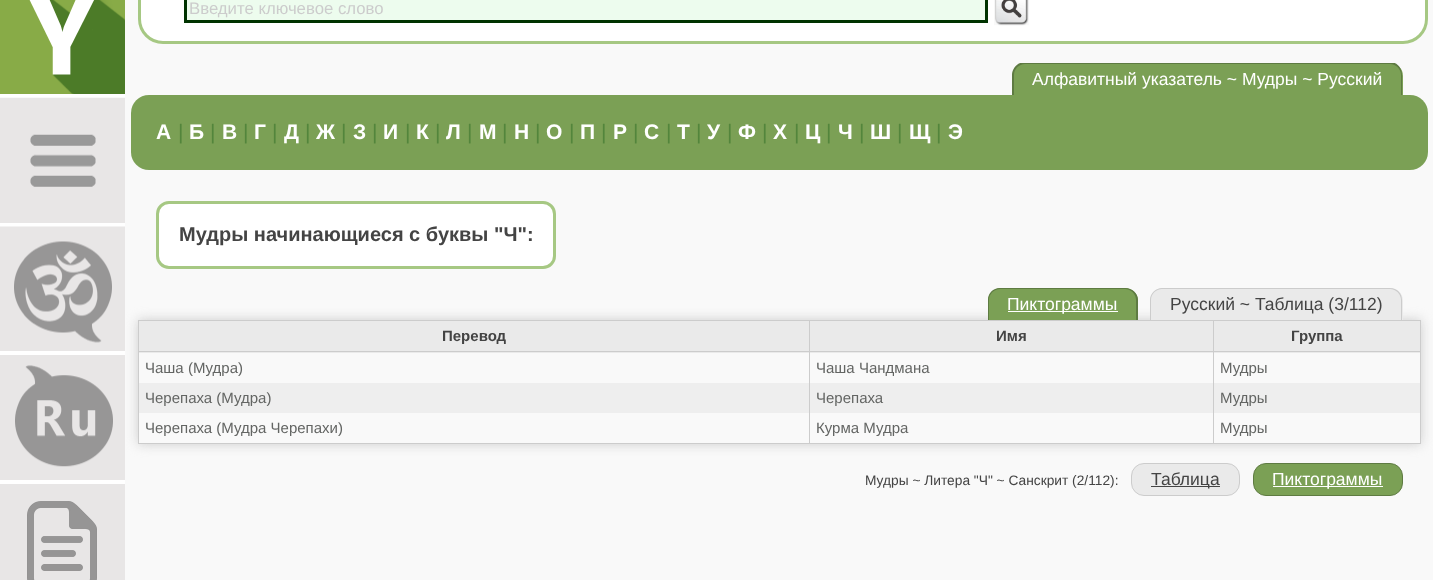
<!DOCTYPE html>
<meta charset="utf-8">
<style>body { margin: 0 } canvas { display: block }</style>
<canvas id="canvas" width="1433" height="580"></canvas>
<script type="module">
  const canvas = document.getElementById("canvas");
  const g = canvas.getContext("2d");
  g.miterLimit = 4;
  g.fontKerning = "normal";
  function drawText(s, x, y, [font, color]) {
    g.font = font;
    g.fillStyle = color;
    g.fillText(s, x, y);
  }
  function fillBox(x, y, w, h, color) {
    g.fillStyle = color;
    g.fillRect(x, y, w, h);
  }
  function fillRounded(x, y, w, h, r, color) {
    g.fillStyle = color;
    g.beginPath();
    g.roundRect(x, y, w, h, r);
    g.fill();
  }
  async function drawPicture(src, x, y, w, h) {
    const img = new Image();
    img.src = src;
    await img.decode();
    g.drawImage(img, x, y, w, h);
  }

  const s1 = ["16.75px Liberation Sans", "#CCCCCC"];
  const s2 = ["17.5px Liberation Sans", "#FFFFFF"];
  const s3 = ["bold 21px Liberation Sans", "#FFFFFF"];
  const s4 = ["21px Liberation Sans", "#53853C"];
  const s5 = ["bold 20px Liberation Sans", "#444444"];
  const s6 = ["17.5px Liberation Sans", "#444444"];
  const s7 = ["bold 15px Liberation Sans", "#444444"];
  const s8 = ["15px Liberation Sans", "#636563"];
  const s9 = ["13.75px Liberation Sans", "#444444"];

  fillBox(0, 0, 1433, 580, "#F9F9F9");
  g.save();
  g.beginPath();
  g.moveTo(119, 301);
  g.lineTo(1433, 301);
  g.lineTo(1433, 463);
  g.lineTo(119, 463);
  g.closePath();
  g.moveTo(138, 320);
  g.lineTo(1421, 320);
  g.lineTo(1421, 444);
  g.lineTo(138, 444);
  g.closePath();
  g.clip("evenodd");
  g.fillStyle = "#CBCBCB";
  g.filter = "blur(6px)";
  g.beginPath();
  g.rect(138, 320, 1283, 124);
  g.fill();
  g.filter = "none";
  g.restore();
  fillBox(0, 187, 125, 393, "#E8E6E6");
  await drawPicture("pic1.png", 0, 0, 125, 94);
  fillBox(0, 94, 125, 4, "#FFFFFF");
  await drawPicture("pic2.png", 0, 97, 125, 90);
  fillBox(0, 223, 125, 4, "#FFFFFF");
  await drawPicture("pic3.png", 0, 226, 125, 117);
  fillBox(0, 351, 125, 4, "#FFFFFF");
  await drawPicture("pic4.png", 15, 365, 98, 102);
  fillBox(0, 480, 125, 4, "#FFFFFF");
  await drawPicture("pic5.png", 27, 501, 70, 79);
  g.beginPath();
  g.roundRect(139.5, -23.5, 1287, 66, 23.5);
  g.fill();
  g.strokeStyle = "#A6C883";
  g.lineWidth = 3;
  g.stroke();
  g.fillStyle = "#EDFCEE";
  g.beginPath();
  g.rect(185.5, -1.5, 801, 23);
  g.fill();
  g.strokeStyle = "#003300";
  g.stroke();
  drawText("Введите ключевое слово", 189, 14, s1);
  await drawPicture("pic6.png", 994, 0, 35, 26);
  g.fillStyle = "#7BA055";
  g.beginPath();
  g.roundRect(1013, 63, 390, 32, [13, 13, 0, 0]);
  g.fill();
  g.save();
  g.beginPath();
  g.rect(131, 63, 1297, 32);
  g.clip();
  g.fillStyle = "#5E7B42";
  g.beginPath();
  g.moveTo(1025, 62);
  g.lineTo(1390, 62);
  g.bezierCurveTo(1397, 62, 1402, 68, 1402, 75);
  g.lineTo(1402, 95);
  g.lineTo(1012, 95);
  g.lineTo(1012, 75);
  g.bezierCurveTo(1012, 68, 1018, 62, 1025, 62);
  g.closePath();
  g.moveTo(1025, 64);
  g.lineTo(1390, 64);
  g.bezierCurveTo(1396, 64, 1401, 69, 1401, 75);
  g.lineTo(1401, 95);
  g.lineTo(1014, 95);
  g.lineTo(1014, 75);
  g.bezierCurveTo(1014, 69, 1019, 64, 1025, 64);
  g.closePath();
  g.fill("evenodd");
  g.restore();
  drawText("Алфавитный указатель ~ Мудры ~ Русский", 1032, 85, s2);
  fillRounded(131, 95, 1297, 75, 18, "#7BA055");
  drawText("А", 156, 139, s3);
  drawText("|", 178, 139, s4);
  drawText("Б", 189, 139, s3);
  drawText("|", 210, 139, s4);
  drawText("В", 222, 139, s3);
  drawText("|", 243, 139, s4);
  drawText("Г", 254, 139, s3);
  drawText("|", 272, 139, s4);
  drawText("Д", 284, 139, s3);
  drawText("|", 305, 139, s4);
  drawText("Ж", 316, 139, s3);
  drawText("|", 341, 139, s4);
  drawText("З", 353, 139, s3);
  drawText("|", 372, 139, s4);
  drawText("И", 383, 139, s3);
  drawText("|", 405, 139, s4);
  drawText("К", 416, 139, s3);
  drawText("|", 435, 139, s4);
  drawText("Л", 446, 139, s3);
  drawText("|", 467, 139, s4);
  drawText("М", 479, 139, s3);
  drawText("|", 502, 139, s4);
  drawText("Н", 514, 139, s3);
  drawText("|", 535, 139, s4);
  drawText("О", 546, 139, s3);
  drawText("|", 569, 139, s4);
  drawText("П", 580, 139, s3);
  drawText("|", 601, 139, s4);
  drawText("Р", 613, 139, s3);
  drawText("|", 633, 139, s4);
  drawText("С", 644, 139, s3);
  drawText("|", 666, 139, s4);
  drawText("Т", 677, 139, s3);
  drawText("|", 696, 139, s4);
  drawText("У", 707, 139, s3);
  drawText("|", 727, 139, s4);
  drawText("Ф", 738, 139, s3);
  drawText("|", 762, 139, s4);
  drawText("Х", 773, 139, s3);
  drawText("|", 794, 139, s4);
  drawText("Ц", 805, 139, s3);
  drawText("|", 826, 139, s4);
  drawText("Ч", 838, 139, s3);
  drawText("|", 859, 139, s4);
  drawText("Ш", 870, 139, s3);
  drawText("|", 897, 139, s4);
  drawText("Щ", 909, 139, s3);
  drawText("|", 936, 139, s4);
  drawText("Э", 948, 139, s3);
  g.beginPath();
  g.roundRect(157.5, 202.5, 397, 65, 11.5);
  g.fill();
  g.strokeStyle = "#A6C883";
  g.stroke();
  drawText("Мудры начинающиеся с буквы \"Ч\":", 179, 241, s5);
  g.fillStyle = "#7BA055";
  g.beginPath();
  g.roundRect(988, 288, 150, 32, [13, 13, 0, 0]);
  g.fill();
  g.fillStyle = "#5E7B42";
  g.beginPath();
  g.moveTo(1000, 288);
  g.lineTo(1125, 288);
  g.bezierCurveTo(1132, 288, 1138, 293, 1138, 300);
  g.lineTo(1138, 320);
  g.lineTo(988, 320);
  g.lineTo(988, 300);
  g.bezierCurveTo(988, 293, 993, 288, 1000, 288);
  g.closePath();
  g.moveTo(1000, 289);
  g.lineTo(1125, 289);
  g.bezierCurveTo(1131, 289, 1136, 294, 1136, 300);
  g.lineTo(1136, 320);
  g.lineTo(989, 320);
  g.lineTo(989, 300);
  g.bezierCurveTo(989, 294, 994, 289, 1000, 289);
  g.closePath();
  g.fill("evenodd");
  fillBox(1008, 311, 110, 1, "#FFFFFF");
  drawText("Пиктограммы", 1007, 310, s2);
  g.fillStyle = "#EAEAEA";
  g.beginPath();
  g.roundRect(1150, 288, 253, 32, [13, 13, 0, 0]);
  g.fill();
  g.fillStyle = "#CCCCCC";
  g.beginPath();
  g.moveTo(1162, 288);
  g.lineTo(1390, 288);
  g.bezierCurveTo(1397, 288, 1402, 293, 1402, 300);
  g.lineTo(1402, 320);
  g.lineTo(1150, 320);
  g.lineTo(1150, 300);
  g.bezierCurveTo(1150, 293, 1156, 288, 1162, 288);
  g.closePath();
  g.moveTo(1162, 289);
  g.lineTo(1390, 289);
  g.bezierCurveTo(1396, 289, 1401, 294, 1401, 300);
  g.lineTo(1401, 320);
  g.lineTo(1151, 320);
  g.lineTo(1151, 300);
  g.bezierCurveTo(1151, 294, 1156, 289, 1162, 289);
  g.closePath();
  g.fill("evenodd");
  drawText("Русский ~ Таблица (3/112)", 1170, 310, s6);
  fillBox(138, 320, 1283, 1, "#CCCCCC");
  fillBox(1420, 320, 1, 124, "#CCCCCC");
  fillBox(138, 443, 1283, 1, "#CCCCCC");
  fillBox(138, 320, 1, 124, "#CCCCCC");
  fillBox(139, 321, 670, 32, "#EAEAEA");
  fillBox(810, 321, 403, 32, "#EAEAEA");
  fillBox(1214, 321, 206, 32, "#EAEAEA");
  fillBox(139, 383, 1281, 30, "#EEEEEE");
  fillBox(1213, 351, 1, 93, "#CCCCCC");
  fillBox(1213, 351, 208, 1, "#CCCCCC");
  fillBox(1213, 320, 1, 33, "#CCCCCC");
  fillBox(809, 351, 1, 93, "#CCCCCC");
  fillBox(809, 351, 405, 1, "#CCCCCC");
  fillBox(809, 320, 1, 33, "#CCCCCC");
  fillBox(138, 351, 672, 1, "#CCCCCC");
  drawText("Перевод", 442, 341, s7);
  drawText("Имя", 996, 341, s7);
  drawText("Группа", 1291, 341, s7);
  drawText("Чаша (Мудра)", 145, 373, s8);
  drawText("Чаша Чандмана", 816, 373, s8);
  drawText("Мудры", 1220, 373, s8);
  drawText("Черепаха (Мудра)", 145, 403, s8);
  drawText("Черепаха", 816, 403, s8);
  drawText("Мудры", 1220, 403, s8);
  drawText("Черепаха (Мудра Черепахи)", 145, 433, s8);
  drawText("Курма Мудра", 816, 433, s8);
  drawText("Мудры", 1220, 433, s8);
  drawText("Мудры ~ Литера \"Ч\" ~ Санскрит (2/112):", 865, 485, s9);
  g.fillStyle = "#EAEAEA";
  g.beginPath();
  g.roundRect(1131.5, 463.5, 108, 32, 12.5);
  g.fill();
  g.strokeStyle = "#CCCCCC";
  g.lineWidth = 1;
  g.stroke();
  fillBox(1151, 486, 69, 1, "#444444");
  drawText("Таблица", 1151, 485, s6);
  g.fillStyle = "#7BA055";
  g.beginPath();
  g.roundRect(1253.5, 463.5, 149, 32, 12.5);
  g.fill();
  g.strokeStyle = "#5E7B42";
  g.stroke();
  fillBox(1273, 486, 110, 1, "#FFFFFF");
  drawText("Пиктограммы", 1272, 485, s2);
</script>
